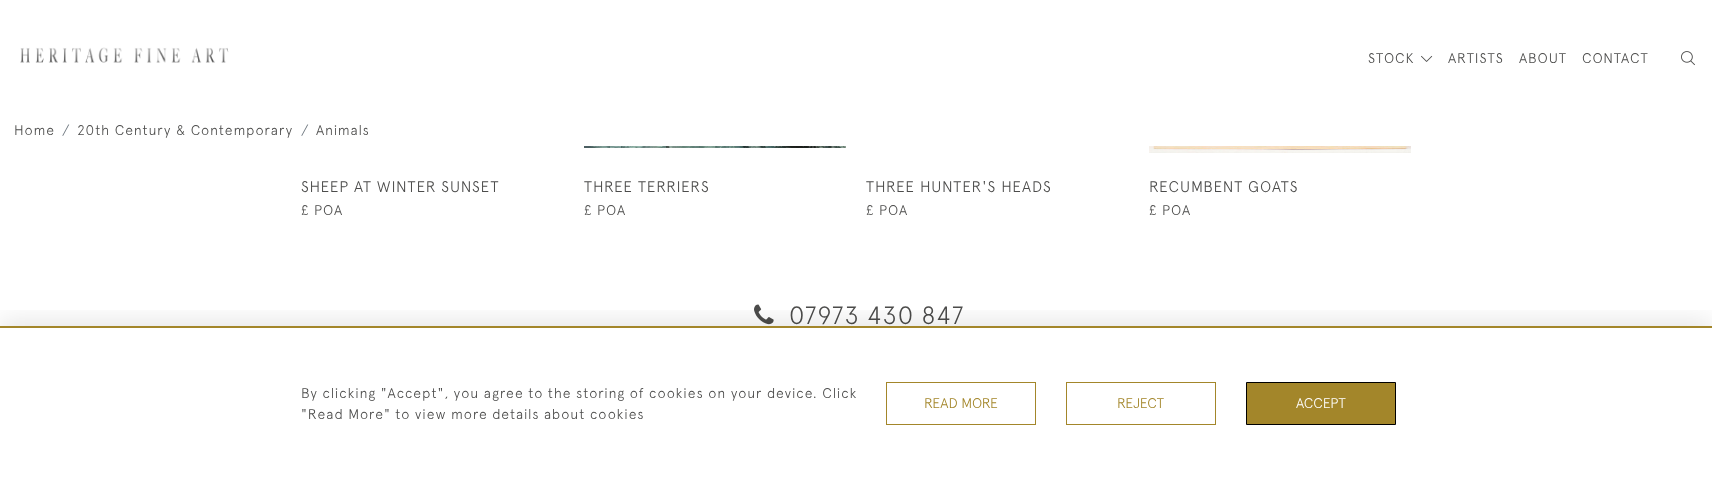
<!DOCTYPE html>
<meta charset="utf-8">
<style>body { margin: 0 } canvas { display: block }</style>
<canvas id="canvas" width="1712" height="479"></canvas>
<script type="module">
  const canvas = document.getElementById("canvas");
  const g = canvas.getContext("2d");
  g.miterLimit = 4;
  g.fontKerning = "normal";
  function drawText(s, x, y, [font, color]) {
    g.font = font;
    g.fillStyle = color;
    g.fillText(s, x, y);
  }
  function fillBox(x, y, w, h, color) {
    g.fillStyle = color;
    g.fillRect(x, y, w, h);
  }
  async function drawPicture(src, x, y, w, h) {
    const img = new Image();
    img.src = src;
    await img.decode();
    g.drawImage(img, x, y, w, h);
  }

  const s1 = ["300 14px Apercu", "#4C4C4B"];
  const s2 = ["300 14px Apercu", "#6C757D"];
  const s3 = ["300 15.4px Apercu", "#4C4C4B"];
  const s4 = ["300 25px Apercu", "#4C4C4B"];
  const s5 = ["300 14px Apercu", "#A3862A"];
  const s6 = ["300 14px Apercu", "#FFFFFF"];

  fillBox(0, 0, 1712, 479, "#FFFFFF");
  await drawPicture("pic1.png", 20, 47, 209, 16);
  g.letterSpacing = "1px";
  drawText("STOCK", 1368, 63, s1);
  await drawPicture("pic2.png", 1421, 55, 12, 7);
  drawText("ARTISTS", 1448, 63, s1);
  drawText("ABOUT", 1519, 63, s1);
  drawText("CONTACT", 1582, 63, s1);
  await drawPicture("pic3.png", 1681, 51, 14, 15);
  drawText("Home", 14, 135, s1);
  drawText("/", 62, 135, s2);
  drawText("20th Century & Contemporary", 77, 135, s1);
  drawText("/", 301, 135, s2);
  drawText("Animals", 316, 135, s1);
  drawText("SHEEP AT WINTER SUNSET", 301, 192, s3);
  drawText("£ POA", 301, 215, s1);
  await drawPicture("pic4.png", 584, 146, 262, 2);
  drawText("THREE TERRIERS", 584, 192, s3);
  drawText("£ POA", 584, 215, s1);
  drawText("THREE HUNTER'S HEADS", 866, 192, s3);
  drawText("£ POA", 866, 215, s1);
  await drawPicture("pic5.png", 1149, 146, 262, 7);
  drawText("RECUMBENT GOATS", 1149, 192, s3);
  drawText("£ POA", 1149, 215, s1);
  await drawPicture("pic6.png", 754, 304, 20, 21);
  drawText("07973 430 847", 789, 324, s4);
  g.save();
  g.beginPath();
  g.rect(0, 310, 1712, 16);
  g.clip();
  g.fillStyle = "rgba(0, 0, 0, 0.1)";
  g.filter = "blur(13px)";
  g.beginPath();
  g.rect(0, 321, 1712, 153);
  g.fill();
  g.filter = "none";
  g.restore();
  fillBox(0, 326, 1712, 2, "#A3862A");
  drawText("By clicking \"Accept\", you agree to the storing of cookies on your device. Click", 301, 398, s1);
  drawText("\"Read More\" to view more details about cookies", 301, 419, s1);
  g.strokeStyle = "#A3862A";
  g.strokeRect(886.5, 382.5, 149, 42);
  g.letterSpacing = "0px";
  drawText("READ MORE", 924, 408, s5);
  g.strokeRect(1066.5, 382.5, 149, 42);
  drawText("REJECT", 1117, 408, s5);
  g.beginPath();
  g.rect(1246.5, 382.5, 149, 42);
  g.fill();
  g.strokeStyle = "#000000";
  g.stroke();
  drawText("ACCEPT", 1296, 408, s6);
</script>
